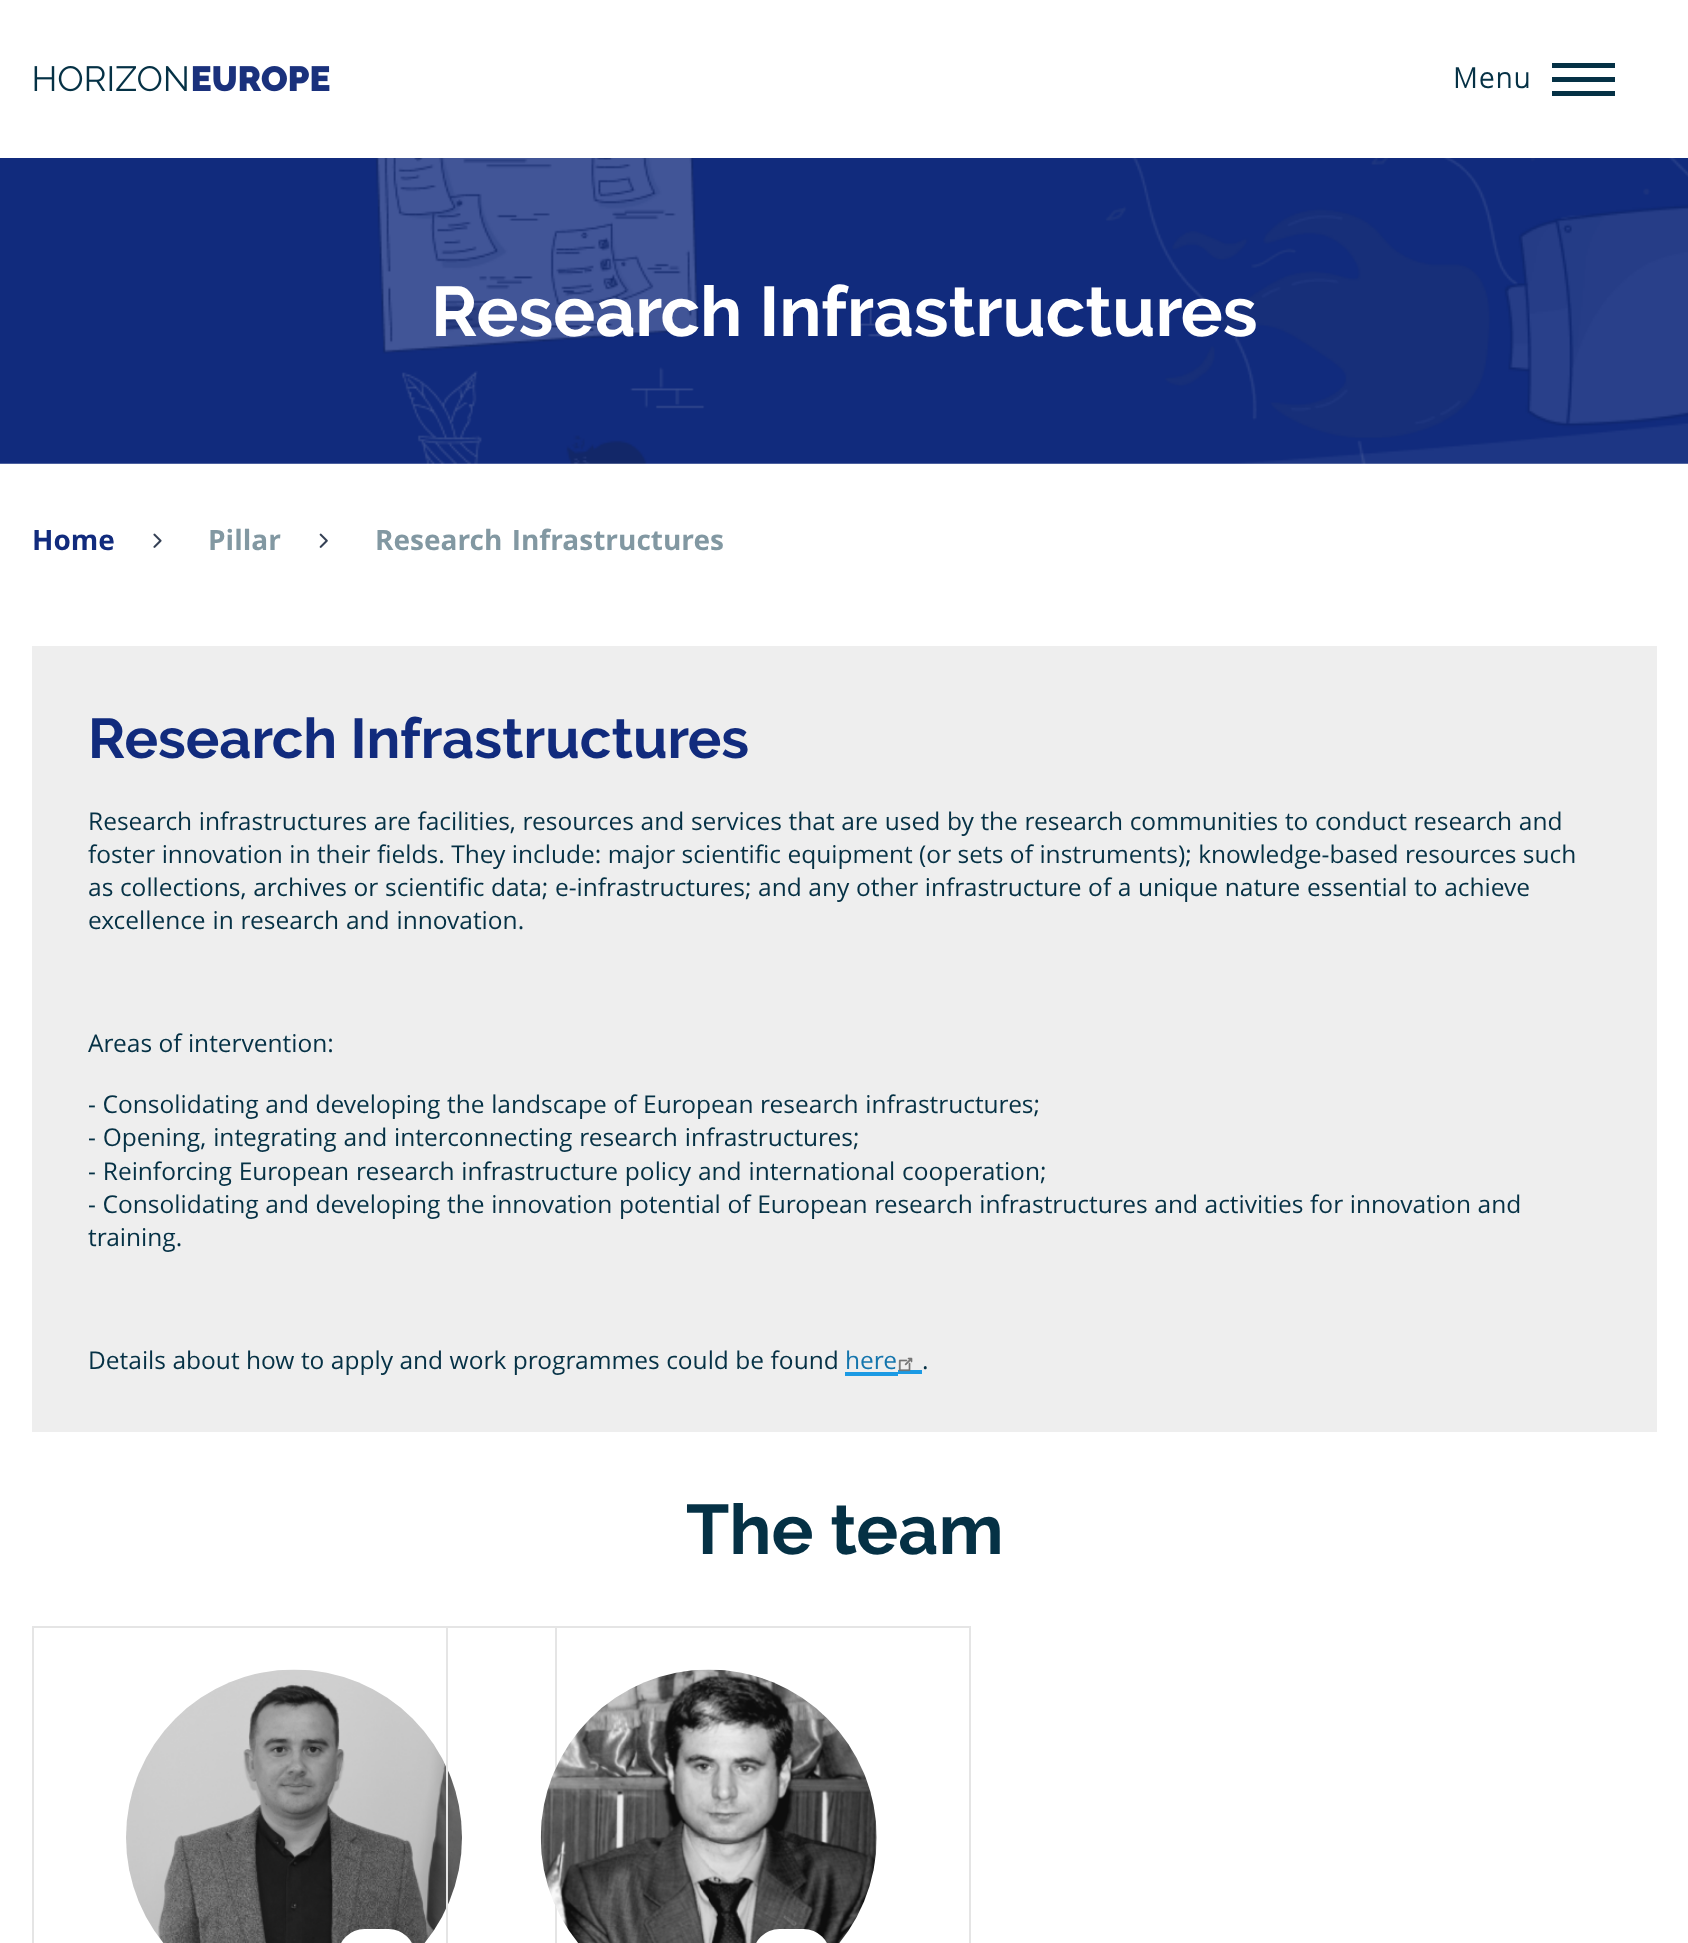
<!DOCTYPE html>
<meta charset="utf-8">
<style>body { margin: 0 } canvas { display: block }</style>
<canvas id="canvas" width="1688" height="1943"></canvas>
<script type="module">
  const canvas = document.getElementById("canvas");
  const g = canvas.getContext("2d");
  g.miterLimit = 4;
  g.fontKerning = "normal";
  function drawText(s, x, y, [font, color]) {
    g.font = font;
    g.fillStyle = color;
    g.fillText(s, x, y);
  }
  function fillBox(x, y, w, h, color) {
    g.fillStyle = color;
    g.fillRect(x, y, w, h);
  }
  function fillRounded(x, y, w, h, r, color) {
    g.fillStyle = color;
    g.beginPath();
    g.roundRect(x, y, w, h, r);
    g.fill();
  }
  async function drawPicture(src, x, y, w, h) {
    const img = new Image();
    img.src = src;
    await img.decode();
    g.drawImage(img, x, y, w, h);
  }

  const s1 = ["bold 28px 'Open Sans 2'", "#053145"];
  const s2 = ["bold 70px Raleway", "#FFFFFF"];
  const s3 = ["bold 28px Open Sans", "#112B7D"];
  const s4 = ["bold 28px Open Sans", "#8298A2"];
  const s5 = ["bold 56px Raleway", "#112B7D"];
  const s6 = ["24.5px Open Sans", "#053145"];
  const s7 = ["24.5px Open Sans", "#1475AD"];
  const s8 = ["bold 70px Raleway", "#053145"];

  fillBox(0, 0, 1688, 1943, "#FFFFFF");
  await drawPicture("pic1.png", 34, 66, 296, 26);
  g.letterSpacing = "1.5px";
  drawText("Menu", 1453, 88, s1);
  fillBox(1552, 77, 63, 5, "#053145");
  fillBox(1552, 63, 63, 5, "#053145");
  fillBox(1552, 91, 63, 5, "#053145");
  await drawPicture("pic2.png", 0, 158, 1688, 306);
  g.letterSpacing = "0px";
  drawText("Research Infrastructures", 431, 336, s2);
  drawText("Home", 32, 550, s3);
  await drawPicture("pic3.png", 153, 533, 9, 15);
  drawText("Pillar", 208, 550, s4);
  await drawPicture("pic4.png", 319, 533, 9, 15);
  g.wordSpacing = "2px";
  drawText("Research Infrastructures", 375, 550, s4);
  fillBox(32, 646, 1625, 786, "#EEEEEE");
  g.wordSpacing = "0px";
  drawText("Research Infrastructures", 88, 758, s5);
  g.wordSpacing = "0.3px";
  drawText("Research infrastructures are facilities, resources and services that are used by the research communities to conduct research and", 88, 830, s6);
  g.wordSpacing = "0.1px";
  drawText("foster innovation in their fields. They include: major scientific equipment (or sets of instruments); knowledge-based resources such", 88, 863, s6);
  g.wordSpacing = "0.25px";
  drawText("as collections, archives or scientific data; e-infrastructures; and any other infrastructure of a unique nature essential to achieve", 88, 896, s6);
  g.wordSpacing = "0.5px";
  drawText("excellence in research and innovation.", 88, 929, s6);
  g.wordSpacing = "0px";
  drawText("Areas of intervention:", 88, 1052, s6);
  g.wordSpacing = "0.25px";
  drawText("- Consolidating and developing the landscape of European research infrastructures;", 88, 1113, s6);
  g.wordSpacing = "0.5px";
  drawText("- Opening, integrating and interconnecting research infrastructures;", 88, 1146, s6);
  drawText("- Reinforcing European research infrastructure policy and international cooperation;", 88, 1180, s6);
  g.wordSpacing = "0.25px";
  drawText("- Consolidating and developing the innovation potential of European research infrastructures and activities for innovation and", 88, 1213, s6);
  g.wordSpacing = "0px";
  drawText("training.", 88, 1246, s6);
  g.wordSpacing = "0.1px";
  drawText("Details about how to apply and work programmes could be found", 88, 1369, s6);
  g.wordSpacing = "0px";
  drawText("here", 845, 1369, s7);
  fillBox(845, 1372, 53, 4, "#1B9AE4");
  fillBox(898, 1370, 24, 4, "#1B9AE4");
  await drawPicture("pic5.png", 898, 1357, 15, 15);
  drawText(".", 922, 1369, s6);
  drawText("The team", 686, 1554, s8);
  g.strokeStyle = "#E5E5E5";
  g.lineWidth = 2;
  g.strokeRect(33, 1627, 523, 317);
  await drawPicture("pic6.png", 126, 1669, 336, 274);
  fillRounded(338, 1929, 77, 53, 38.5, "#FFFFFF");
  g.strokeRect(447, 1627, 523, 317);
  await drawPicture("pic7.png", 540, 1669, 337, 274);
  fillRounded(753, 1929, 77, 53, 38.5, "#FFFFFF");
</script>
